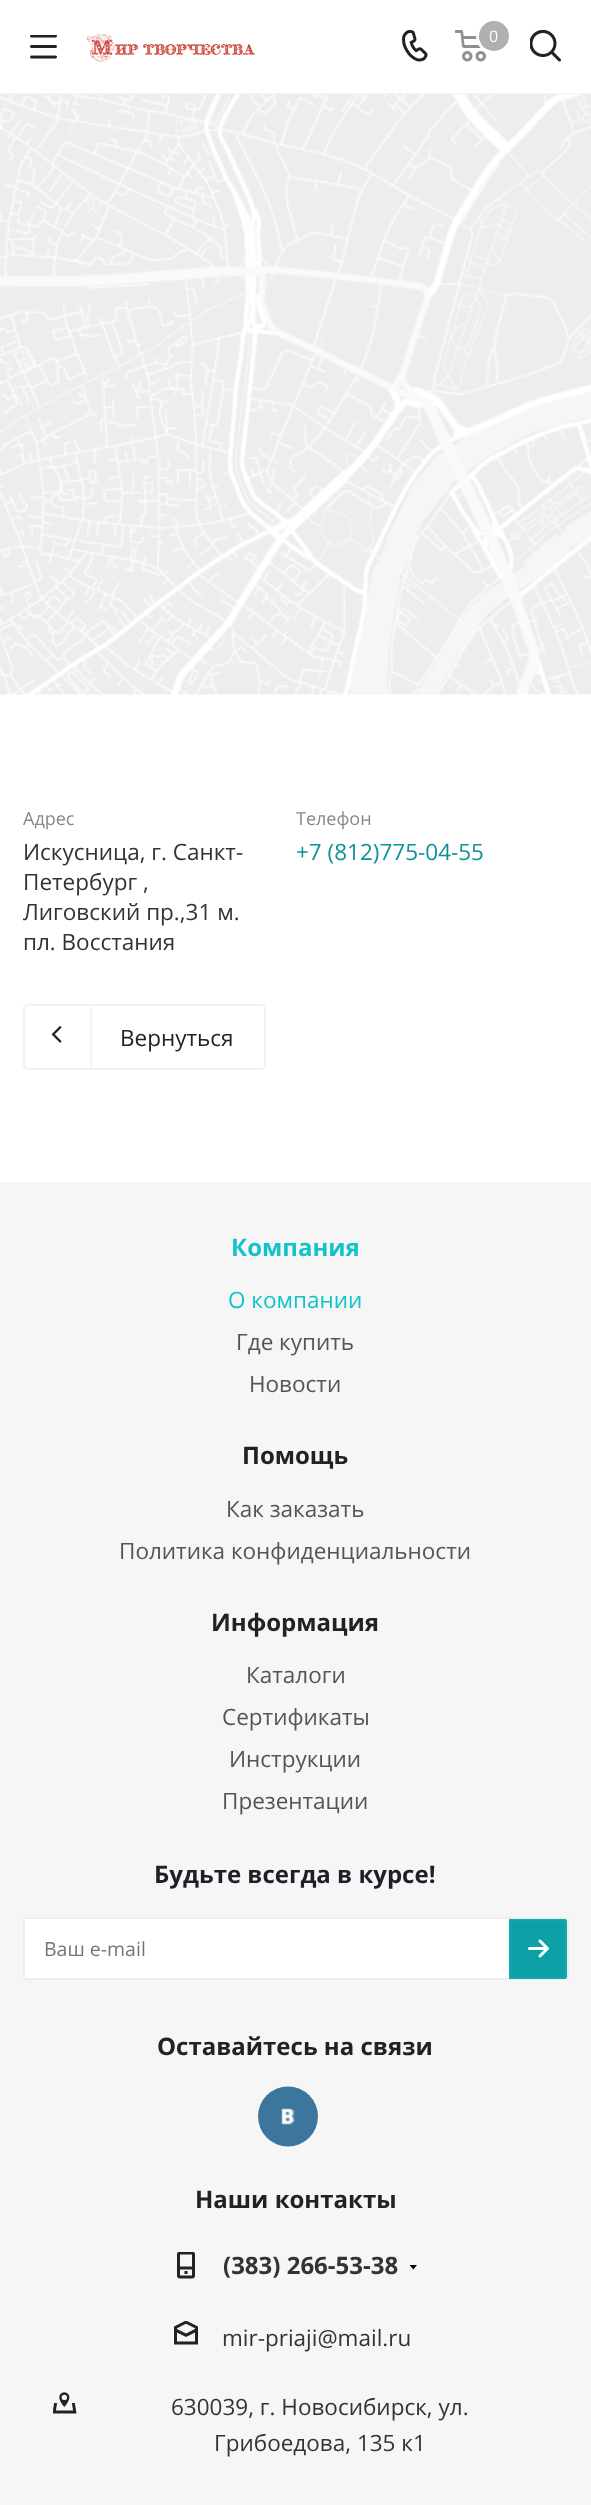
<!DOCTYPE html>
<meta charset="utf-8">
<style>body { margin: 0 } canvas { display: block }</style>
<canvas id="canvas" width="591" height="2505"></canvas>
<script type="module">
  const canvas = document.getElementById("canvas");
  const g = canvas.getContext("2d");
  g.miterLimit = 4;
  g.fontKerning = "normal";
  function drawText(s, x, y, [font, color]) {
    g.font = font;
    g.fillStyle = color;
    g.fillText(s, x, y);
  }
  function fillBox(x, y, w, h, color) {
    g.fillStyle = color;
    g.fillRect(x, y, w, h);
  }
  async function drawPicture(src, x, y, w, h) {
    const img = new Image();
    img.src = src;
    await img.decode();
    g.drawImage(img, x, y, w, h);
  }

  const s1 = ["16px Open Sans", "#FFFFFF"];
  const s2 = ["18px Open Sans", "#888888"];
  const s3 = ["22.5px Open Sans", "#333333"];
  const s4 = ["22.5px Open Sans", "#0C9297"];
  const s5 = ["22.5px Open Sans", "#222222"];
  const s6 = ["bold 24px Open Sans", "#11C3CA"];
  const s7 = ["22.5px Open Sans", "#11C3CA"];
  const s8 = ["22.5px Open Sans", "#555555"];
  const s9 = ["bold 24px Open Sans", "#222222"];
  const s10 = ["bold 24px Open Sans", "#1D2029"];
  const s11 = ["19.5px Open Sans", "#757575"];
  const s12 = ["bold 24px Open Sans", "#333333"];

  fillBox(0, 0, 591, 2505, "#F6F6F7");
  fillBox(0, 0, 591, 93, "#FFFFFF");
  await drawPicture("pic1.png", 30, 35, 27, 24);
  await drawPicture("pic2.png", 87, 34, 168, 28);
  await drawPicture("pic3.png", 402, 30, 26, 32);
  await drawPicture("pic4.png", 455, 30, 31, 32);
  g.beginPath();
  g.arc(494, 36, 16.5, 0, Math.PI * 2);
  g.strokeStyle = "#FFFFFF";
  g.lineWidth = 3;
  g.stroke();
  g.fillStyle = "#B0B0B0";
  g.beginPath();
  g.arc(494, 36, 15, 0, Math.PI * 2);
  g.fill();
  drawText("0", 489, 42, s1);
  await drawPicture("pic5.png", 530, 30, 31, 32);
  fillBox(0, 95, 591, 1087, "#FFFFFF");
  await drawPicture("pic6.png", 0, 94, 591, 601);
  drawText("Адрес", 23, 825, s2);
  drawText("Искусница, г. Санкт-", 23, 860, s3);
  drawText("Петербург ,", 23, 890, s3);
  drawText("Лиговский пр.,31 м.", 23, 920, s3);
  drawText("пл. Восстания", 23, 950, s3);
  drawText("Телефон", 296, 825, s2);
  drawText("+7 (812)775-04-55", 296, 860, s4);
  g.beginPath();
  g.roundRect(24, 1005, 241, 64, 4);
  g.strokeStyle = "#F2F2F2";
  g.lineWidth = 2;
  g.stroke();
  await drawPicture("pic7.png", 51, 1026, 11, 17);
  fillBox(90, 1005, 2, 63, "#F5F5F5");
  drawText("Вернуться", 120, 1046, s5);
  drawText("Компания", 231, 1256, s6);
  drawText("О компании", 228, 1308, s7);
  drawText("Где купить", 236, 1350, s8);
  drawText("Новости", 249, 1392, s8);
  drawText("Помощь", 242, 1464, s9);
  drawText("Как заказать", 226, 1517, s8);
  drawText("Политика конфиденциальности", 119, 1559, s8);
  drawText("Информация", 211, 1631, s9);
  drawText("Каталоги", 246, 1683, s8);
  drawText("Сертификаты", 222, 1725, s8);
  drawText("Инструкции", 229, 1767, s8);
  drawText("Презентации", 222, 1809, s8);
  drawText("Будьте всегда в курсе!", 154, 1883, s10);
  g.fillStyle = "#FFFFFF";
  g.beginPath();
  g.roundRect(24, 1918, 544, 61, 2);
  g.fill();
  g.strokeStyle = "#EEEEEE";
  g.stroke();
  drawText("Ваш e-mail", 44, 1956, s11);
  g.fillStyle = "#0DA0A6";
  g.beginPath();
  g.roundRect(509, 1919, 58, 60, [0, 3, 3, 0]);
  g.fill();
  await drawPicture("pic8.png", 528, 1939, 21, 19);
  g.beginPath();
  g.roundRect(510, 1920, 56, 58, [0, 2, 2, 0]);
  g.strokeStyle = "#0FA8AE";
  g.stroke();
  drawText("Оставайтесь на связи", 157, 2055, s9);
  await drawPicture("pic9.png", 257, 2086, 62, 61);
  drawText("Наши контакты", 195, 2208, s9);
  await drawPicture("pic10.png", 177, 2252, 18, 27);
  drawText("(383) 266-53-38", 223, 2274, s12);
  await drawPicture("pic11.png", 410, 2265, 7, 5);
  await drawPicture("pic12.png", 174, 2321, 24, 24);
  drawText("mir-priaji@mail.ru", 222, 2346, s3);
  await drawPicture("pic13.png", 53, 2392, 24, 22);
  drawText("630039, г. Новосибирск, ул.", 171, 2415, s3);
  drawText("Грибоедова, 135 к1", 214, 2451, s3);
</script>
